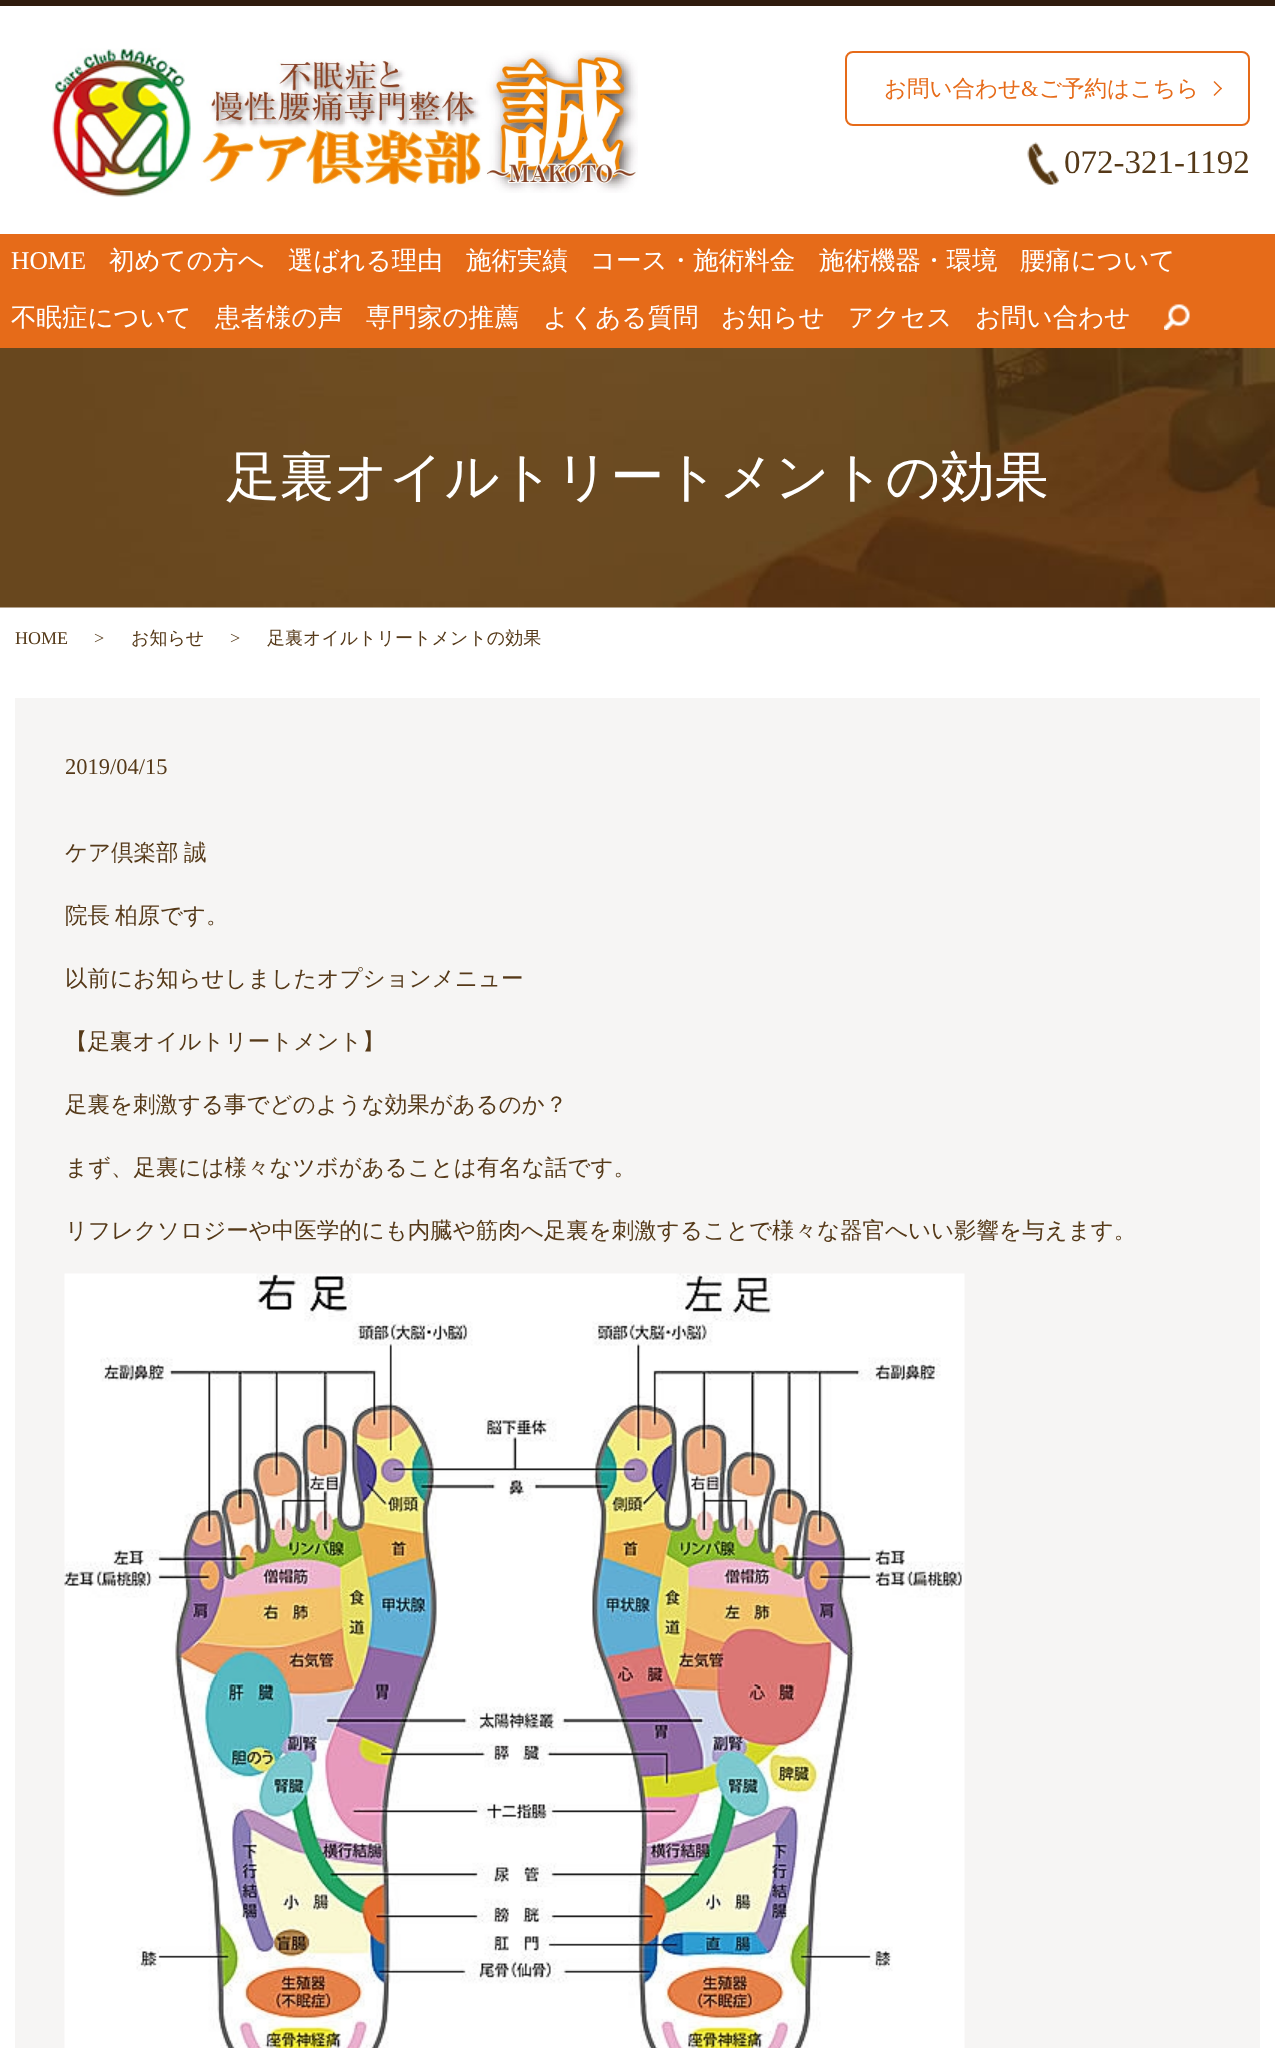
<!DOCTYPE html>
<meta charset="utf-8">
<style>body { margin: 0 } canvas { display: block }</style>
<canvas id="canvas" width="1275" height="2048"></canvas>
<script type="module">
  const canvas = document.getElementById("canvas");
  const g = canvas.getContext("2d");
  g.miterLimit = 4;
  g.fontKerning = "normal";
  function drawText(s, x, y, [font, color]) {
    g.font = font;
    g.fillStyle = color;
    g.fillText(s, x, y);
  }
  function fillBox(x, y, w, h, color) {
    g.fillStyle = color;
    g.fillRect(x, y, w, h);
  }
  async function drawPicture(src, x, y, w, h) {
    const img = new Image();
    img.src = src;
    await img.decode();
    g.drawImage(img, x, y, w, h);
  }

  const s1 = ["500 22.5px WenQuanYi Zen Hei", "#E66B19"];
  const s2 = ["22.5px Liberation Serif", "#E66B19"];
  const s3 = ["33px Liberation Serif", "#553918"];
  const s4 = ["25.5px Liberation Serif", "#FFFFFF"];
  const s5 = ["500 25.5px WenQuanYi Zen Hei", "#FFFFFF"];
  const s6 = ["500 54px WenQuanYi Zen Hei", "#FFFFFF"];
  const s7 = ["18px Liberation Serif", "#553918"];
  const s8 = ["500 18px WenQuanYi Zen Hei", "#553918"];
  const s9 = ["22.5px Liberation Serif", "#553918"];
  const s10 = ["500 22.5px WenQuanYi Zen Hei", "#553918"];

  fillBox(0, 0, 1275, 2048, "#FFFFFF");
  fillBox(0, 0, 1275, 6, "#301C0E");
  await drawPicture("pic1.png", 52, 48, 139, 149);
  await drawPicture("pic2.png", 201, 50, 437, 143);
  g.beginPath();
  g.roundRect(846, 52, 403, 73, 7);
  g.strokeStyle = "#E66B19";
  g.lineWidth = 2;
  g.stroke();
  drawText("お問い合わせ", 884, 96, s1);
  drawText("&", 1021, 96, s2);
  drawText("ご予約はこちら", 1039, 96, s1);
  g.beginPath();
  g.moveTo(1214.5, 81);
  g.lineTo(1222, 88.5);
  g.lineTo(1221, 89.5);
  g.lineTo(1213.5, 82);
  g.closePath();
  g.fill();
  g.beginPath();
  g.moveTo(1221, 87.5);
  g.lineTo(1222, 88.5);
  g.lineTo(1214.5, 96);
  g.lineTo(1213.5, 95);
  g.closePath();
  g.fill();
  await drawPicture("pic3.png", 1027, 142, 32, 43);
  drawText("072-321-1192", 1064, 173, s3);
  fillBox(0, 234, 1275, 114, "#E66B19");
  drawText("HOME", 11, 269, s4);
  drawText("初めての方へ", 109, 269, s5);
  drawText("選ばれる理由", 288, 269, s5);
  drawText("施術実績", 466, 269, s5);
  drawText("コース・施術料金", 590, 269, s5);
  drawText("施術機器・環境", 819, 269, s5);
  drawText("腰痛について", 1020, 269, s5);
  drawText("不眠症について", 11, 326, s5);
  drawText("患者様の声", 215, 326, s5);
  drawText("専門家の推薦", 366, 326, s5);
  drawText("よくある質問", 543, 326, s5);
  drawText("お知らせ", 721, 326, s5);
  drawText("アクセス", 848, 326, s5);
  drawText("お問い合わせ", 975, 326, s5);
  await drawPicture("pic4.png", 1164, 304, 26, 26);
  await drawPicture("pic5.png", 0, 348, 1275, 260);
  drawText("足裏オイルトリートメントの効果", 226, 495, s6);
  drawText("HOME", 15, 644, s7);
  drawText(">", 94, 644, s7);
  drawText("お知らせ", 131, 644, s8);
  drawText(">", 230, 644, s7);
  drawText("足裏オイルトリートメントの効果", 267, 644, s8);
  fillBox(15, 698, 1245, 1350, "#F6F5F4");
  drawText("2019/04/15", 65, 774, s9);
  drawText("ケア倶楽部", 65, 860, s10);
  drawText("誠", 184, 860, s10);
  drawText("院長", 65, 923, s10);
  drawText("柏原です。", 115, 923, s10);
  drawText("以前にお知らせしましたオプションメニュー", 65, 986, s10);
  drawText("【足裏オイルトリートメント】", 65, 1049, s10);
  drawText("足裏を刺激する事でどのような効果があるのか？", 65, 1112, s10);
  drawText("まず、足裏には様々なツボがあることは有名な話です。", 65, 1175, s10);
  drawText("リフレクソロジーや中医学的にも内臓や筋肉へ足裏を刺激することで様々な器官へいい影響を与えます。", 65, 1238, s10);
  await drawPicture("pic6.png", 64, 1273, 901, 775);
</script>
